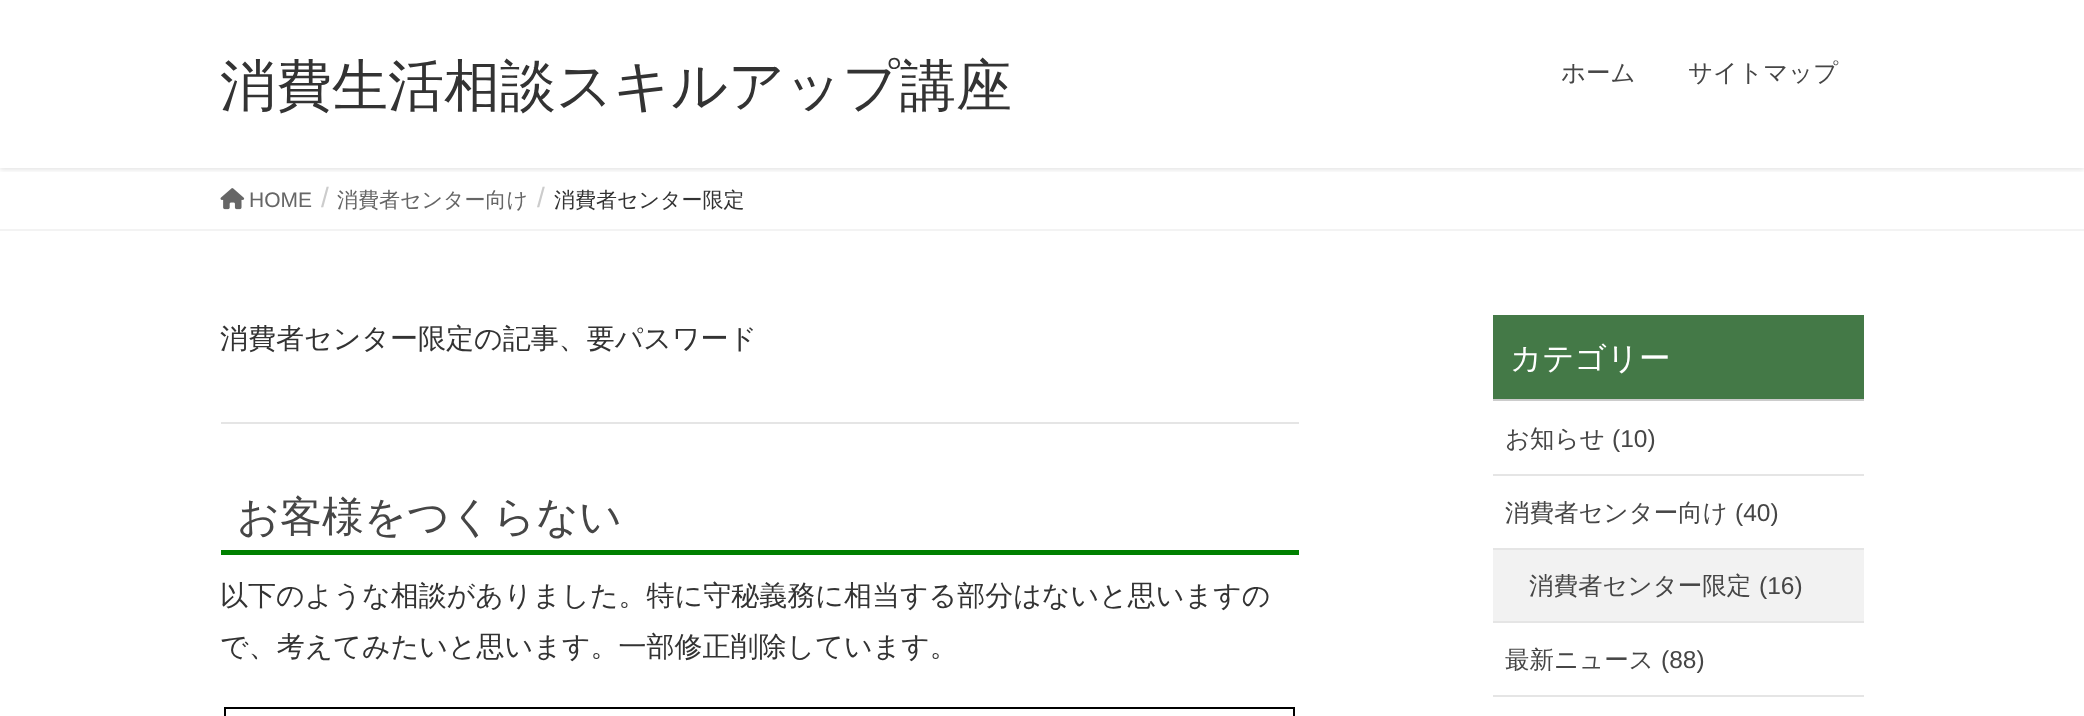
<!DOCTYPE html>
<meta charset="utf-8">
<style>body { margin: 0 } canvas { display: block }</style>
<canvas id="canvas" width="2084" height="716"></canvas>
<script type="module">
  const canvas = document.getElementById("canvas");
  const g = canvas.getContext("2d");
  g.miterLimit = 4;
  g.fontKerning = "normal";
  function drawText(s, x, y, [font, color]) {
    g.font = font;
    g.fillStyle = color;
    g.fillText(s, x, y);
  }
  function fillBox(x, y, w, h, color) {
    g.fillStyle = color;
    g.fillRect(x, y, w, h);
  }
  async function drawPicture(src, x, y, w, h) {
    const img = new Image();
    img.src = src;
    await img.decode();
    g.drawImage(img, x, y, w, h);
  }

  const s1 = ["500 56px WenQuanYi Zen Hei", "#333333"];
  const s2 = ["500 24.5px WenQuanYi Zen Hei", "#464646"];
  const s3 = ["21px Liberation Sans", "#666666"];
  const s4 = ["28px Liberation Sans", "#CCCCCC"];
  const s5 = ["500 21px WenQuanYi Zen Hei", "#666666"];
  const s6 = ["500 21px WenQuanYi Zen Hei", "#333333"];
  const s7 = ["500 28px WenQuanYi Zen Hei", "#333333"];
  const s8 = ["42px Noto Sans", "#464646"];
  const s9 = ["500 42px WenQuanYi Zen Hei", "#464646"];
  const s10 = ["500 31.5px WenQuanYi Zen Hei", "#FFFFFF"];
  const s11 = ["24.5px Liberation Sans", "#464646"];

  fillBox(0, 0, 2084, 716, "#FFFFFF");
  g.save();
  g.beginPath();
  g.rect(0, 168, 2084, 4);
  g.clip();
  g.fillStyle = "rgba(0, 0, 0, 0.1)";
  g.filter = "blur(2.5px)";
  g.beginPath();
  g.rect(0, 2, 2084, 168);
  g.fill();
  g.filter = "none";
  g.restore();
  drawText("消費生活相談スキルアップ講座", 220, 105, s1);
  drawText("ホーム", 1561, 81, s2);
  drawText("サイトマップ", 1688, 81, s2);
  fillBox(0, 229, 2084, 2, "#F3F3F3");
  await drawPicture("pic1.png", 220, 188, 25, 22);
  drawText("HOME", 249, 207, s3);
  drawText("/", 321, 207, s4);
  drawText("消費者センター向け", 337, 207, s5);
  drawText("/", 537, 207, s4);
  drawText("消費者センター限定", 554, 207, s6);
  drawText("消費者センター限定の記事、要パスワード", 220, 348, s7);
  fillBox(221, 422, 1078, 2, "#E5E5E5");
  fillBox(221, 550, 1078, 5, "#008000");
  drawText("お", 237, 531, s8);
  drawText("客様をつくらない", 280, 531, s9);
  drawText("以下のような相談がありました。特に守秘義務に相当する部分はないと思いますの", 220, 605, s7);
  drawText("で、考えてみたいと思います。一部修正削除しています。", 220, 656, s7);
  g.strokeStyle = "#000000";
  g.lineWidth = 2;
  g.strokeRect(225, 708, 1069, 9);
  fillBox(1493, 315, 371, 84, "#447947");
  fillBox(1493, 399, 371, 2, "#CCCCCC");
  drawText("カテゴリー", 1510, 369, s10);
  fillBox(1493, 474, 371, 2, "#E5E5E5");
  drawText("お知らせ", 1505, 447, s2);
  drawText("(10)", 1612, 447, s11);
  fillBox(1493, 548, 371, 2, "#E5E5E5");
  drawText("消費者センター向け", 1505, 521, s2);
  drawText("(40)", 1735, 521, s11);
  fillBox(1493, 550, 371, 71, "#F2F2F2");
  fillBox(1493, 621, 371, 2, "#E5E5E5");
  drawText("消費者センター限定", 1529, 594, s2);
  drawText("(16)", 1759, 594, s11);
  fillBox(1493, 695, 371, 2, "#E5E5E5");
  drawText("最新ニュース", 1505, 668, s2);
  drawText("(88)", 1661, 668, s11);
</script>
